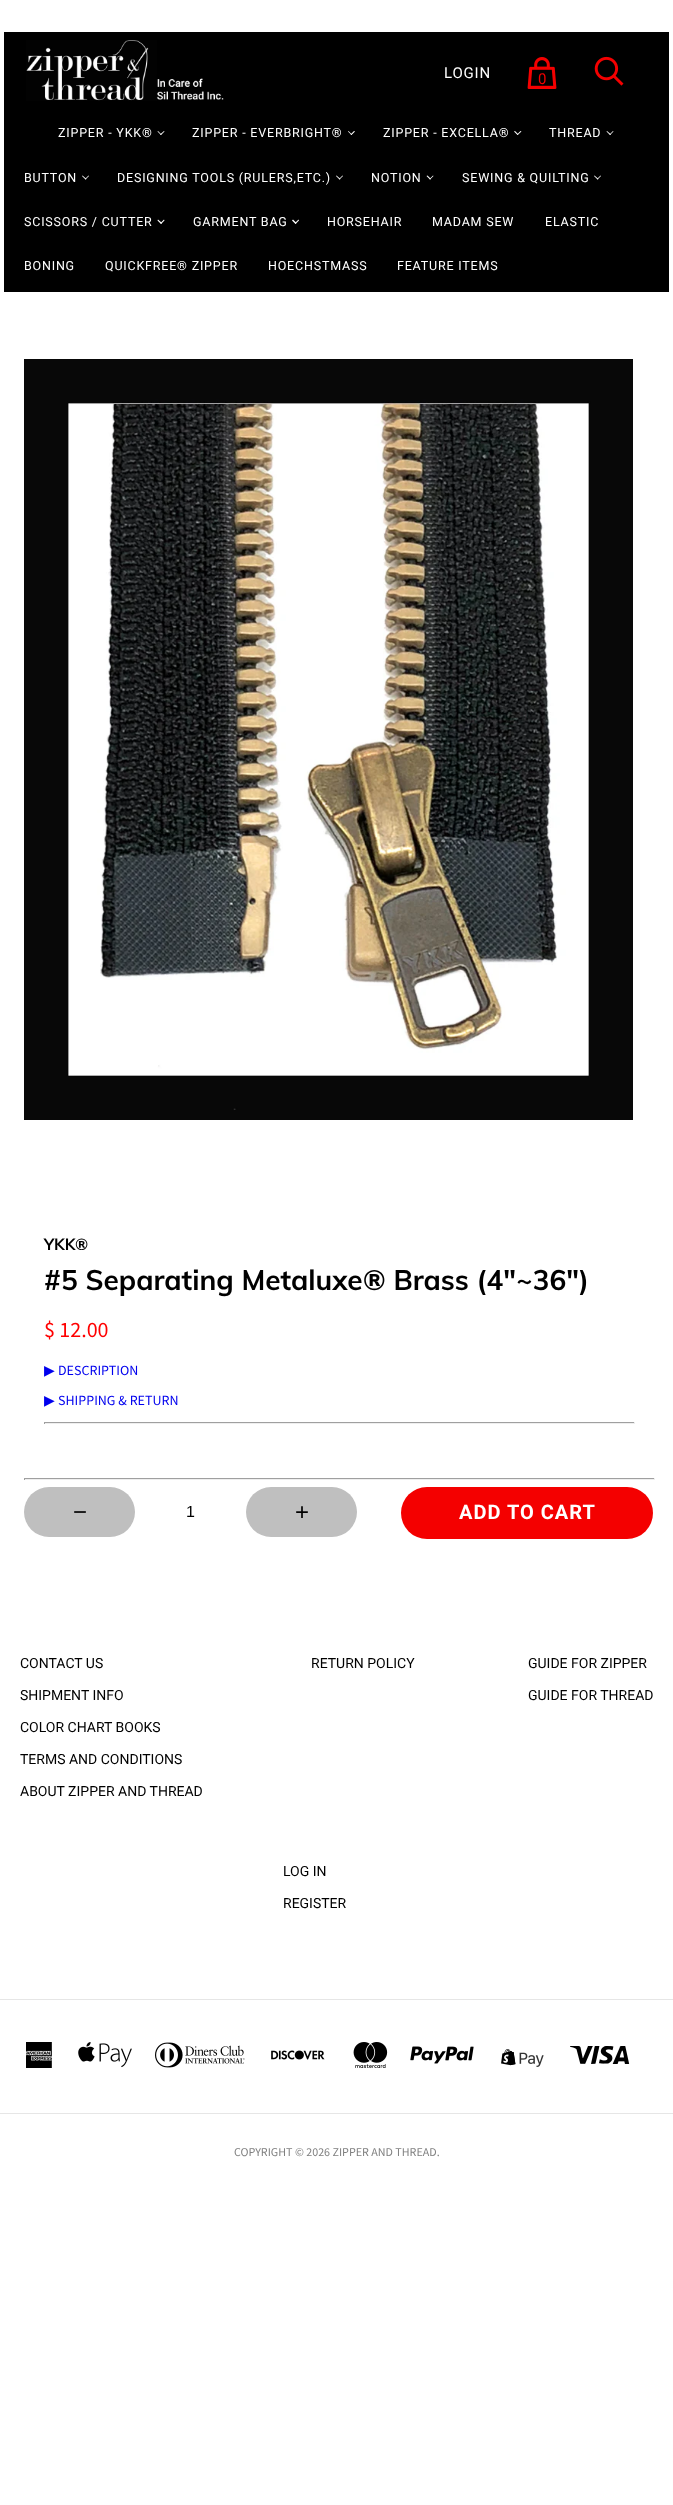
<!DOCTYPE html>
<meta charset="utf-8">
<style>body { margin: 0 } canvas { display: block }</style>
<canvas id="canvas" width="673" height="2505"></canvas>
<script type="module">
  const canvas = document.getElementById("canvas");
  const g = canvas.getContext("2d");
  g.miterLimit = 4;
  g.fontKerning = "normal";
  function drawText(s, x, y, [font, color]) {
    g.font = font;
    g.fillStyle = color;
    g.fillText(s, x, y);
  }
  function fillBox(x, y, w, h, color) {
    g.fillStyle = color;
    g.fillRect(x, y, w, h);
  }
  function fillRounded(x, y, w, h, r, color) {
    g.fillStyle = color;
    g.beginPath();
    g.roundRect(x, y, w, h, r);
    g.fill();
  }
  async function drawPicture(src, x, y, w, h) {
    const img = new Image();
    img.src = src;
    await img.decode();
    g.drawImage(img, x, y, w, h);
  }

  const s1 = ["15px Roboto", "#FFFFFF"];
  const s2 = ["15px Roboto", "#F40000"];
  const s3 = ["12.5px Roboto", "#FFFFFF"];
  const s4 = ["bold 16px Muli", "#000000"];
  const s5 = ["bold 28px Muli", "#000000"];
  const s6 = ["22px Source Sans Pro", "#FF0000"];
  const s7 = ["14px DejaVu Sans", "#0000EE"];
  const s8 = ["14px Source Sans Pro", "#0000EE"];
  const s9 = ["24px Liberation Sans", "#000000"];
  const s10 = ["16px Liberation Sans", "#000000"];
  const s11 = ["bold 20px Roboto", "#FFFFFF"];
  const s12 = ["14px Roboto", "#000000"];
  const s13 = ["12px Source Sans Pro", "#808080"];

  fillBox(0, 0, 673, 2505, "#FFFFFF");
  fillBox(4, 32, 665, 260, "#000000");
  await drawPicture("pic1.png", 26, 40, 198, 61);
  g.letterSpacing = "0.8px";
  drawText("LOGIN", 444, 78, s1);
  await drawPicture("pic2.png", 527, 57, 30, 32);
  g.letterSpacing = "0px";
  drawText("0", 538, 84, s2);
  await drawPicture("pic3.png", 594, 56, 30, 30);
  g.letterSpacing = "0.8px";
  drawText("ZIPPER - YKK®", 58, 137, s3);
  g.beginPath();
  g.moveTo(160, 134.5);
  g.lineTo(164, 131);
  g.lineTo(164.5, 131.5);
  g.lineTo(161, 135);
  g.closePath();
  g.fill();
  g.beginPath();
  g.moveTo(157.5, 131.5);
  g.lineTo(158, 131);
  g.lineTo(161.5, 134.5);
  g.lineTo(161, 135);
  g.closePath();
  g.fill();
  drawText("ZIPPER - EVERBRIGHT®", 192, 137, s3);
  g.beginPath();
  g.moveTo(350.5, 134.5);
  g.lineTo(354, 131);
  g.lineTo(355, 131.5);
  g.lineTo(351.5, 135);
  g.closePath();
  g.fill();
  g.beginPath();
  g.moveTo(348, 131.5);
  g.lineTo(348.5, 131);
  g.lineTo(352, 134.5);
  g.lineTo(351.5, 135);
  g.closePath();
  g.fill();
  drawText("ZIPPER - EXCELLA®", 383, 137, s3);
  g.beginPath();
  g.moveTo(517, 134.5);
  g.lineTo(520.5, 131);
  g.lineTo(521.5, 131.5);
  g.lineTo(517.5, 135);
  g.closePath();
  g.fill();
  g.beginPath();
  g.moveTo(514, 131.5);
  g.lineTo(515, 131);
  g.lineTo(518.5, 134.5);
  g.lineTo(517.5, 135);
  g.closePath();
  g.fill();
  drawText("THREAD", 549, 137, s3);
  g.beginPath();
  g.moveTo(609.5, 134.5);
  g.lineTo(613, 131);
  g.lineTo(613.5, 131.5);
  g.lineTo(610, 135);
  g.closePath();
  g.fill();
  g.beginPath();
  g.moveTo(606.5, 131.5);
  g.lineTo(607, 131);
  g.lineTo(611, 134.5);
  g.lineTo(610, 135);
  g.closePath();
  g.fill();
  drawText("BUTTON", 24, 182, s3);
  g.beginPath();
  g.moveTo(85, 179);
  g.lineTo(88.5, 175.5);
  g.lineTo(89, 176);
  g.lineTo(85.5, 179.5);
  g.closePath();
  g.fill();
  g.beginPath();
  g.moveTo(82, 176);
  g.lineTo(82.5, 175.5);
  g.lineTo(86.5, 179);
  g.lineTo(85.5, 179.5);
  g.closePath();
  g.fill();
  drawText("DESIGNING TOOLS (RULERS,ETC.)", 117, 182, s3);
  g.beginPath();
  g.moveTo(339, 179);
  g.lineTo(342.5, 175.5);
  g.lineTo(343, 176);
  g.lineTo(339.5, 179.5);
  g.closePath();
  g.fill();
  g.beginPath();
  g.moveTo(336, 176);
  g.lineTo(336.5, 175.5);
  g.lineTo(340.5, 179);
  g.lineTo(339.5, 179.5);
  g.closePath();
  g.fill();
  drawText("NOTION", 371, 182, s3);
  g.beginPath();
  g.moveTo(429.5, 179);
  g.lineTo(433, 175.5);
  g.lineTo(433.5, 176);
  g.lineTo(430, 179.5);
  g.closePath();
  g.fill();
  g.beginPath();
  g.moveTo(426.5, 176);
  g.lineTo(427.5, 175.5);
  g.lineTo(431, 179);
  g.lineTo(430, 179.5);
  g.closePath();
  g.fill();
  drawText("SEWING & QUILTING", 462, 182, s3);
  g.beginPath();
  g.moveTo(597, 179);
  g.lineTo(600.5, 175.5);
  g.lineTo(601, 176);
  g.lineTo(597.5, 179.5);
  g.closePath();
  g.fill();
  g.beginPath();
  g.moveTo(594, 176);
  g.lineTo(594.5, 175.5);
  g.lineTo(598.5, 179);
  g.lineTo(597.5, 179.5);
  g.closePath();
  g.fill();
  drawText("SCISSORS / CUTTER", 24, 226, s3);
  g.beginPath();
  g.moveTo(160.5, 223);
  g.lineTo(164, 219.5);
  g.lineTo(164.5, 220.5);
  g.lineTo(161, 224);
  g.closePath();
  g.fill();
  g.beginPath();
  g.moveTo(157.5, 220.5);
  g.lineTo(158, 219.5);
  g.lineTo(162, 223);
  g.lineTo(161, 224);
  g.closePath();
  g.fill();
  drawText("GARMENT BAG", 193, 226, s3);
  g.beginPath();
  g.moveTo(295, 223);
  g.lineTo(298.5, 219.5);
  g.lineTo(299, 220.5);
  g.lineTo(295.5, 224);
  g.closePath();
  g.fill();
  g.beginPath();
  g.moveTo(292, 220.5);
  g.lineTo(293, 219.5);
  g.lineTo(296.5, 223);
  g.lineTo(295.5, 224);
  g.closePath();
  g.fill();
  drawText("HORSEHAIR", 327, 226, s3);
  drawText("MADAM SEW", 432, 226, s3);
  drawText("ELASTIC", 545, 226, s3);
  drawText("BONING", 24, 270, s3);
  drawText("QUICKFREE® ZIPPER", 105, 270, s3);
  drawText("HOECHSTMASS", 268, 270, s3);
  drawText("FEATURE ITEMS", 397, 270, s3);
  await drawPicture("pic4.png", 24, 359, 609, 761);
  g.letterSpacing = "0px";
  drawText("YKK®", 44, 1250, s4);
  drawText("#5 Separating Metaluxe® Brass (4\"~36\")", 44, 1290, s5);
  drawText("$ 12.00", 44, 1337, s6);
  drawText("▶", 44, 1375, s7);
  drawText("DESCRIPTION", 58, 1375, s8);
  drawText("▶", 44, 1405, s7);
  drawText("SHIPPING & RETURN", 58, 1405, s8);
  fillBox(44, 1422, 591, 1, "#9F9F9F");
  fillBox(634, 1422, 1, 2, "#EEEEEE");
  fillBox(44, 1423, 591, 1, "#EEEEEE");
  fillBox(44, 1422, 1, 2, "#9F9F9F");
  fillBox(24, 1478, 631, 1, "#9F9F9F");
  fillBox(654, 1478, 1, 2, "#EEEEEE");
  fillBox(24, 1479, 631, 1, "#EEEEEE");
  fillBox(24, 1478, 1, 2, "#9F9F9F");
  fillRounded(24, 1487, 111, 50, 25, "#BFBFBF");
  drawText("−", 73, 1520, s9);
  drawText("1", 186, 1517, s10);
  fillRounded(246, 1487, 111, 50, 25, "#BFBFBF");
  drawText("+", 295, 1520, s9);
  fillRounded(401, 1487, 252, 52, 26, "#F40000");
  g.letterSpacing = "1px";
  drawText("ADD TO CART", 459, 1519, s11);
  g.letterSpacing = "0px";
  drawText("CONTACT US", 20, 1668, s12);
  drawText("SHIPMENT INFO", 20, 1700, s12);
  drawText("COLOR CHART BOOKS", 20, 1732, s12);
  drawText("TERMS AND CONDITIONS", 20, 1764, s12);
  drawText("ABOUT ZIPPER AND THREAD", 20, 1796, s12);
  drawText("RETURN POLICY", 311, 1668, s12);
  drawText("GUIDE FOR ZIPPER", 528, 1668, s12);
  drawText("GUIDE FOR THREAD", 528, 1700, s12);
  drawText("LOG IN", 283, 1876, s12);
  drawText("REGISTER", 283, 1908, s12);
  fillBox(0, 1999, 673, 1, "#E6E6E6");
  await drawPicture("pic5.png", 26, 2042, 26, 26);
  await drawPicture("pic6.png", 78, 2042, 54, 26);
  await drawPicture("pic7.png", 155, 2042, 90, 26);
  await drawPicture("pic8.png", 271, 2050, 54, 10);
  await drawPicture("pic9.png", 353, 2042, 35, 26);
  await drawPicture("pic10.png", 410, 2046, 64, 18);
  await drawPicture("pic11.png", 501, 2049, 43, 18);
  await drawPicture("pic12.png", 570, 2046, 60, 18);
  fillBox(0, 2113, 673, 1, "#E6E6E6");
  drawText("COPYRIGHT © 2026 ZIPPER AND THREAD.", 234, 2156, s13);
</script>
